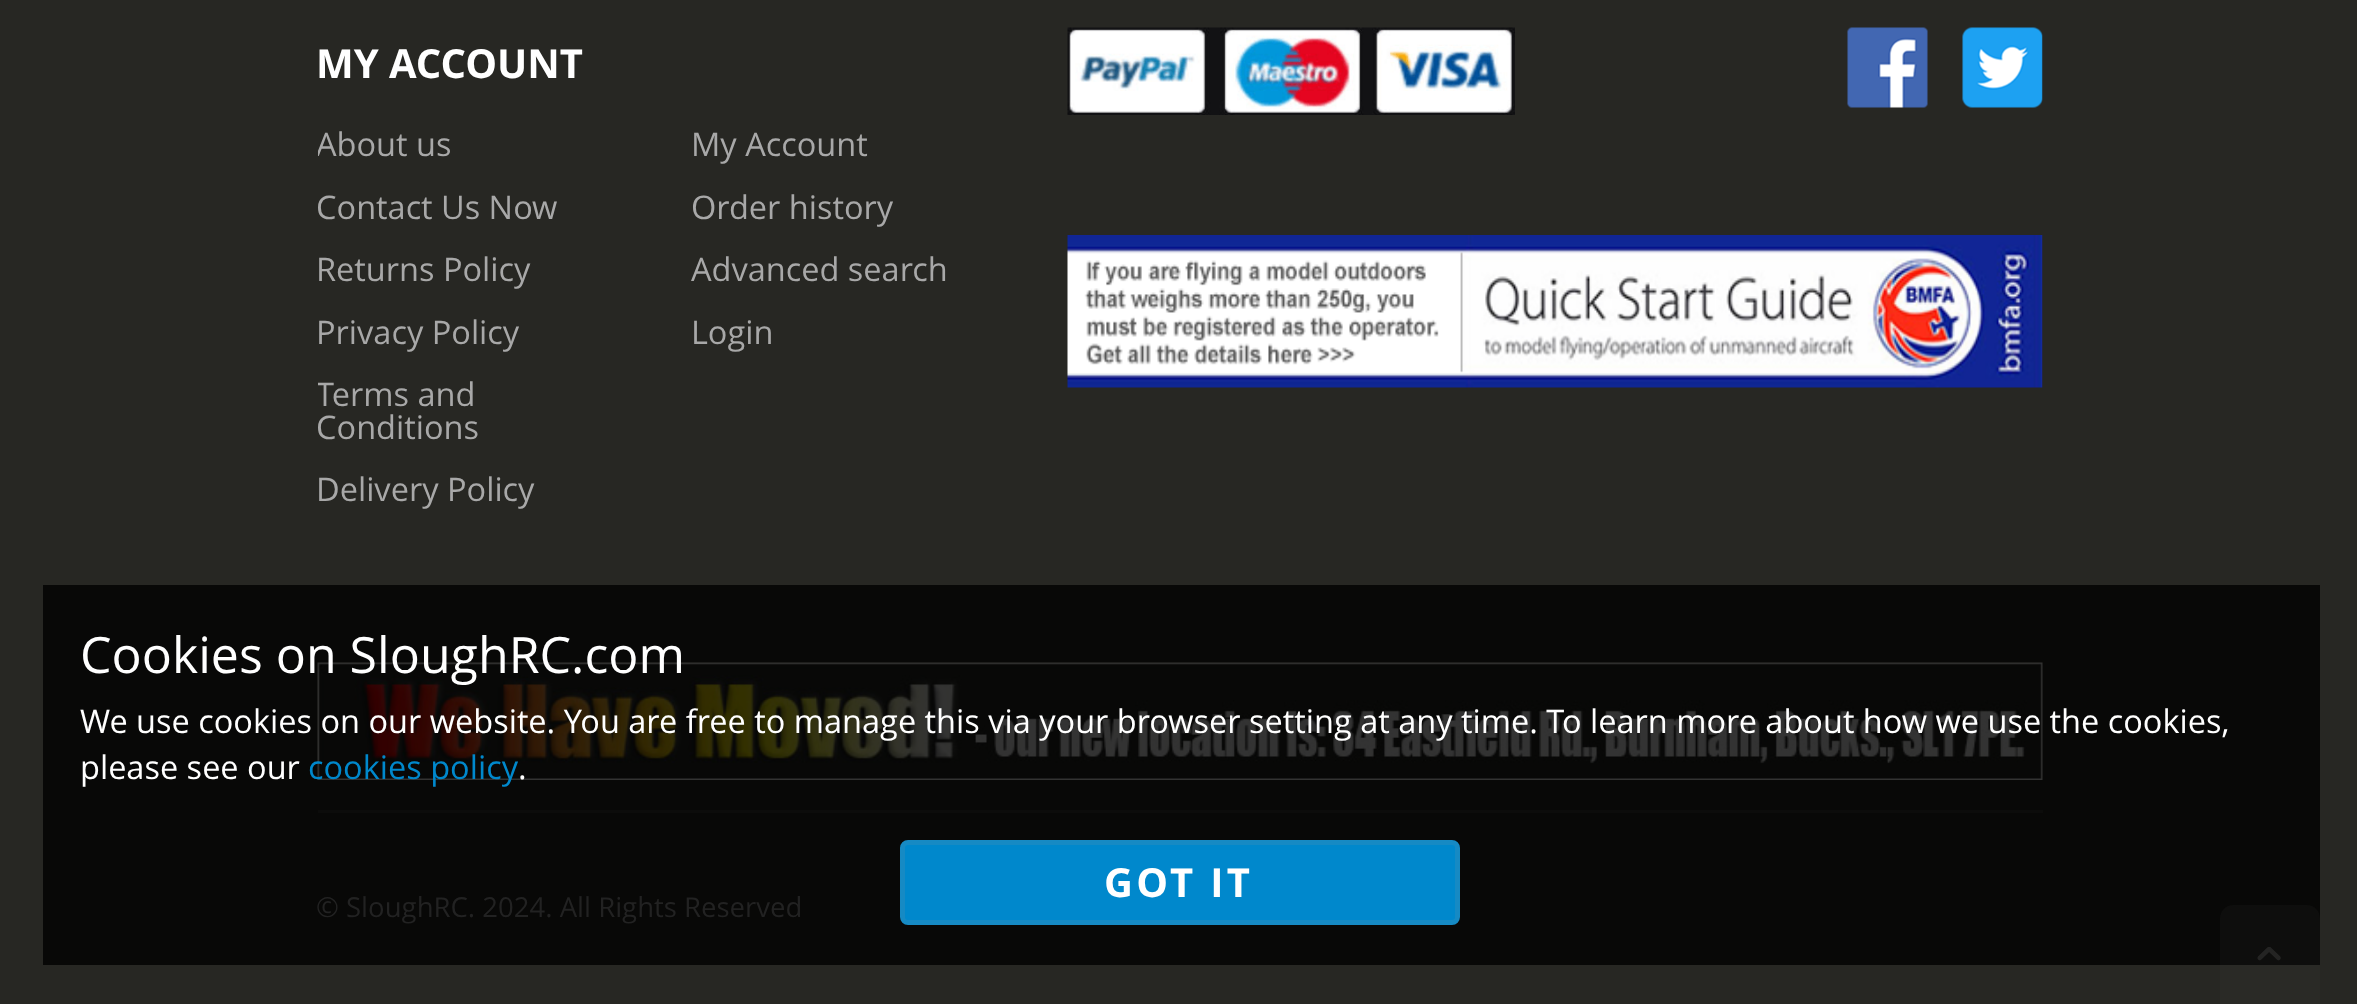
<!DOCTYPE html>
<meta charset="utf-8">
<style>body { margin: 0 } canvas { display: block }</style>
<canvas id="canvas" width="2357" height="1004"></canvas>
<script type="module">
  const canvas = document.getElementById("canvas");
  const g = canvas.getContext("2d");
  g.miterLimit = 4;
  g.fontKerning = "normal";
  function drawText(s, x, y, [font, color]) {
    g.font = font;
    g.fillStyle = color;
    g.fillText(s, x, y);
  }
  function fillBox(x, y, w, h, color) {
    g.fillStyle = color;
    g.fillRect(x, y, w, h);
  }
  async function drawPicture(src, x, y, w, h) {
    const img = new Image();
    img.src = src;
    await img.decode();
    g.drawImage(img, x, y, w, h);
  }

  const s1 = ["bold 40px Open Sans", "#FFFFFF"];
  const s2 = ["32.5px Open Sans", "#A8A8A8"];
  const s3 = ["27.5px Open Sans", "#222222"];
  const s4 = ["50px Open Sans", "#FFFFFF"];
  const s5 = ["32.5px Open Sans", "#FFFFFF"];
  const s6 = ["32.5px Open Sans", "#0088CC"];

  fillBox(0, 0, 2357, 1004, "#272723");
  fillBox(43, 585, 2277, 380, "#080807");
  drawText("MY ACCOUNT", 316, 78, s1);
  g.save();
  g.beginPath();
  g.rect(318, 0, 1725, 663);
  g.clip();
  drawText("About us", 316, 156, s2);
  g.restore();
  drawText("Contact Us Now", 316, 219, s2);
  drawText("Returns Policy", 316, 281, s2);
  drawText("Privacy Policy", 316, 344, s2);
  g.save();
  g.beginPath();
  g.rect(318, 0, 1725, 663);
  g.clip();
  drawText("Terms and", 316, 406, s2);
  g.restore();
  drawText("Conditions", 316, 439, s2);
  drawText("Delivery Policy", 316, 501, s2);
  drawText("My Account", 691, 156, s2);
  drawText("Order history", 691, 219, s2);
  drawText("Advanced search", 691, 281, s2);
  drawText("Login", 691, 344, s2);
  await drawPicture("pic1.png", 1067, 27, 448, 88);
  await drawPicture("pic2.png", 1847, 27, 81, 81);
  await drawPicture("pic3.png", 1962, 27, 81, 81);
  await drawPicture("pic4.png", 1067, 235, 976, 153);
  await drawPicture("pic5.png", 317, 662, 1726, 118);
  fillBox(318, 810, 1725, 3, "#0C0C0B");
  drawText("© SloughRC. 2024. All Rights Reserved", 316, 917, s3);
  g.fillStyle = "rgba(64, 64, 64, 0.1)";
  g.beginPath();
  g.moveTo(2233, 905);
  g.lineTo(2307, 905);
  g.bezierCurveTo(2314, 905, 2320, 911, 2320, 918);
  g.lineTo(2320, 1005);
  g.lineTo(2220, 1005);
  g.lineTo(2220, 918);
  g.bezierCurveTo(2220, 911, 2226, 905, 2233, 905);
  g.closePath();
  g.fill();
  await drawPicture("pic6.png", 2257, 947, 24, 14);
  drawText("Cookies on SloughRC.com", 80, 673, s4);
  drawText("We use cookies on our website. You are free to manage this via your browser setting at any time. To learn more about how we use the cookies,", 80, 733, s5);
  drawText("please see our", 80, 779, s5);
  drawText("cookies policy", 308, 779, s6);
  drawText(".", 518, 779, s5);
  g.fillStyle = "#0088CC";
  g.beginPath();
  g.roundRect(902.5, 842.5, 555, 80, 5.5);
  g.fill();
  g.strokeStyle = "#168AC4";
  g.lineWidth = 5;
  g.stroke();
  g.letterSpacing = "3.25px";
  drawText("GOT IT", 1104, 897, s1);
</script>
